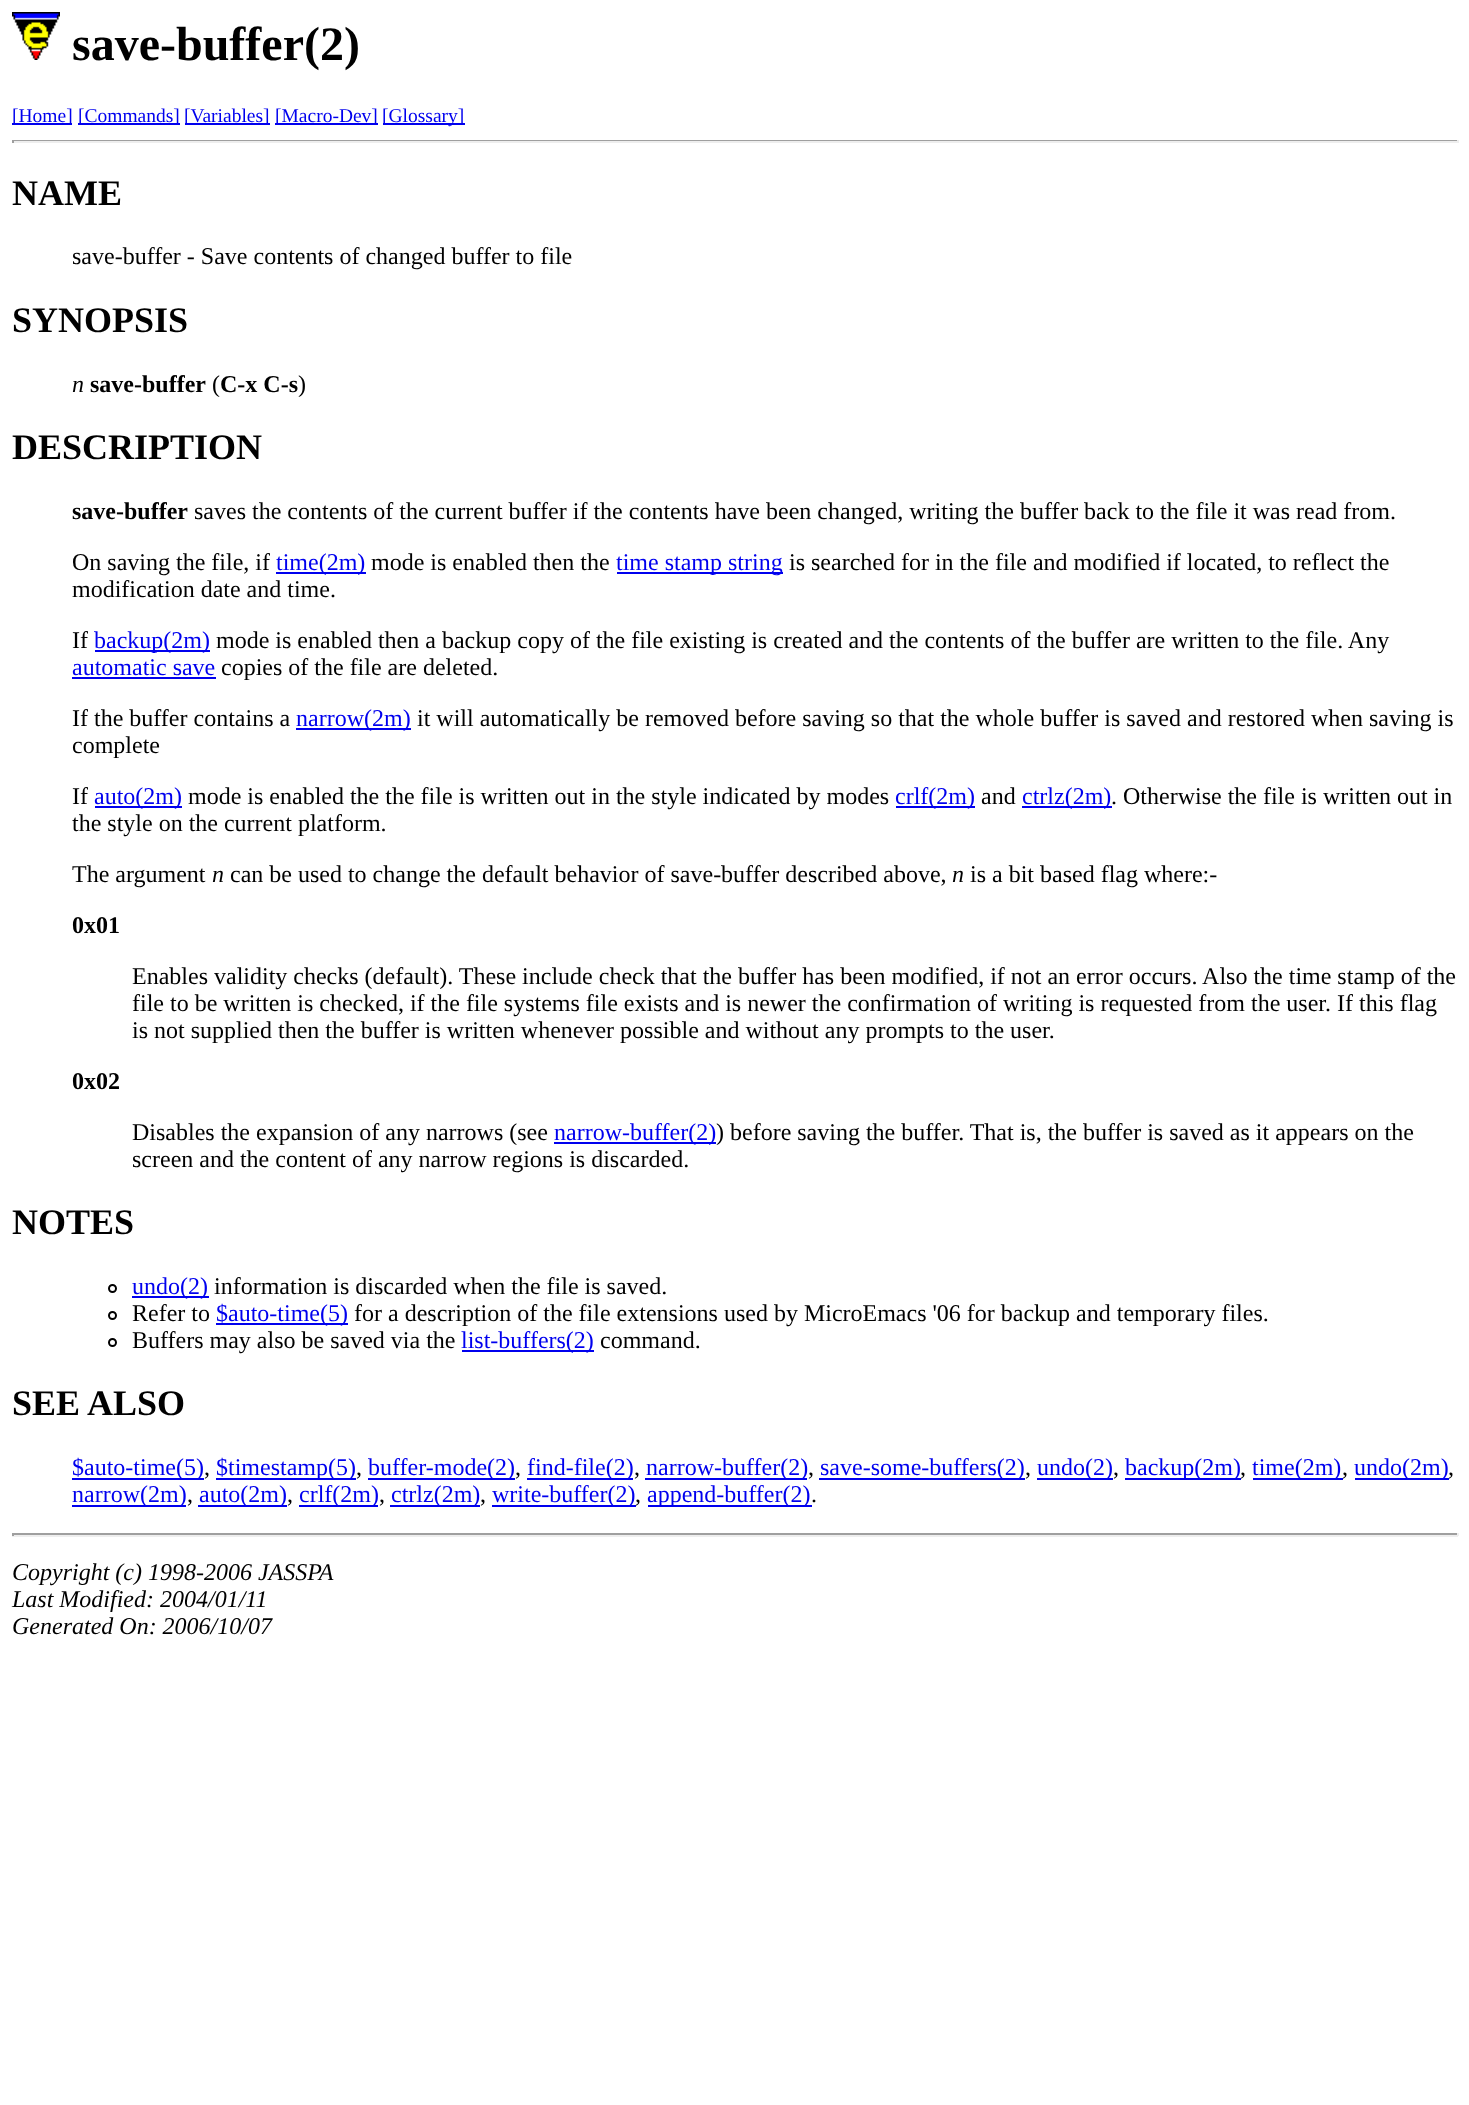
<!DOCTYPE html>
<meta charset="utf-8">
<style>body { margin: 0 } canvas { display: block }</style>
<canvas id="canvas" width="1469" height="2105"></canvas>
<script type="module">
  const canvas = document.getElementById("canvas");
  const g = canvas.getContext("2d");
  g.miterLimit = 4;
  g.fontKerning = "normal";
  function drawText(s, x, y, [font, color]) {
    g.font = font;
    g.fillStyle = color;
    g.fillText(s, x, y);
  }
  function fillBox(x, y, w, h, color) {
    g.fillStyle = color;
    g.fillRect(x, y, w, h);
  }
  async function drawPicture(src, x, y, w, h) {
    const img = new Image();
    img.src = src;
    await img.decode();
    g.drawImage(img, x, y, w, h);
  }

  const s1 = ["bold 48px Liberation Serif", "#000000"];
  const s2 = ["19.5px Liberation Serif", "#0000EE"];
  const s3 = ["bold 36px Liberation Serif", "#000000"];
  const s4 = ["24px Liberation Serif", "#000000"];
  const s5 = ["italic 24px Liberation Serif", "#000000"];
  const s6 = ["bold 24px Liberation Serif", "#000000"];
  const s7 = ["24px Liberation Serif", "#0000EE"];

  fillBox(0, 0, 1469, 2105, "#FFFFFF");
  await drawPicture("pic1.png", 12, 12, 48, 48);
  drawText("save-buffer(2)", 72, 60, s1);
  fillBox(12, 123, 60, 2, "#0000EE");
  drawText("[Home]", 12, 122, s2);
  fillBox(78, 123, 102, 2, "#0000EE");
  drawText("[Commands]", 78, 122, s2);
  fillBox(185, 123, 85, 2, "#0000EE");
  drawText("[Variables]", 184, 122, s2);
  fillBox(275, 123, 103, 2, "#0000EE");
  drawText("[Macro-Dev]", 275, 122, s2);
  fillBox(383, 123, 82, 2, "#0000EE");
  drawText("[Glossary]", 382, 122, s2);
  fillBox(12, 140, 1446, 1, "#9F9F9F");
  fillBox(1457, 140, 2, 3, "#EEEEEE");
  fillBox(12, 141, 1446, 2, "#EEEEEE");
  fillBox(12, 140, 2, 3, "#9F9F9F");
  drawText("NAME", 12, 205, s3);
  drawText("save-buffer - Save contents of changed buffer to file", 72, 264, s4);
  drawText("SYNOPSIS", 12, 332, s3);
  drawText("n", 72, 392, s5);
  drawText("save-buffer", 90, 392, s6);
  drawText("(", 212, 392, s4);
  drawText("C-x C-s", 220, 392, s6);
  drawText(")", 298, 392, s4);
  drawText("DESCRIPTION", 12, 459, s3);
  drawText("save-buffer", 72, 519, s6);
  drawText("saves the contents of the current buffer if the contents have been changed, writing the buffer back to the file it was read from.", 194, 519, s4);
  drawText("On saving the file, if", 72, 570, s4);
  fillBox(276, 572, 90, 2, "#0000EE");
  drawText("time(2m)", 276, 570, s7);
  drawText("mode is enabled then the", 371, 570, s4);
  fillBox(617, 572, 166, 2, "#0000EE");
  drawText("time stamp string", 616, 570, s7);
  drawText("is searched for in the file and modified if located, to reflect the", 789, 570, s4);
  drawText("modification date and time.", 72, 597, s4);
  drawText("If", 72, 648, s4);
  fillBox(95, 650, 115, 2, "#0000EE");
  drawText("backup(2m)", 94, 648, s7);
  drawText("mode is enabled then a backup copy of the file existing is created and the contents of the buffer are written to the file. Any", 216, 648, s4);
  drawText("automatic save", 72, 675, s7);
  fillBox(72, 677, 144, 2, "#0000EE");
  drawText("copies of the file are deleted.", 221, 675, s4);
  drawText("If the buffer contains a", 72, 726, s4);
  fillBox(296, 728, 115, 2, "#0000EE");
  drawText("narrow(2m)", 296, 726, s7);
  drawText("it will automatically be removed before saving so that the whole buffer is saved and restored when saving is", 417, 726, s4);
  drawText("complete", 72, 753, s4);
  drawText("If", 72, 804, s4);
  fillBox(95, 806, 87, 2, "#0000EE");
  drawText("auto(2m)", 94, 804, s7);
  drawText("mode is enabled the the file is written out in the style indicated by modes", 188, 804, s4);
  fillBox(896, 806, 79, 2, "#0000EE");
  drawText("crlf(2m)", 895, 804, s7);
  drawText("and", 981, 804, s4);
  fillBox(1022, 806, 90, 2, "#0000EE");
  drawText("ctrlz(2m)", 1022, 804, s7);
  drawText(". Otherwise the file is written out in", 1111, 804, s4);
  drawText("the style on the current platform.", 72, 831, s4);
  drawText("The argument", 72, 882, s4);
  drawText("n", 212, 882, s5);
  drawText("can be used to change the default behavior of save-buffer described above,", 230, 882, s4);
  drawText("n", 952, 882, s5);
  drawText("is a bit based flag where:-", 970, 882, s4);
  drawText("0x01", 72, 933, s6);
  drawText("Enables validity checks (default). These include check that the buffer has been modified, if not an error occurs. Also the time stamp of the", 132, 984, s4);
  drawText("file to be written is checked, if the file systems file exists and is newer the confirmation of writing is requested from the user. If this flag", 132, 1011, s4);
  drawText("is not supplied then the buffer is written whenever possible and without any prompts to the user.", 132, 1038, s4);
  drawText("0x02", 72, 1089, s6);
  drawText("Disables the expansion of any narrows (see", 132, 1140, s4);
  fillBox(554, 1142, 162, 2, "#0000EE");
  drawText("narrow-buffer(2)", 554, 1140, s7);
  drawText(") before saving the buffer. That is, the buffer is saved as it appears on the", 716, 1140, s4);
  drawText("screen and the content of any narrow regions is discarded.", 132, 1167, s4);
  drawText("NOTES", 12, 1234, s3);
  g.beginPath();
  g.arc(112.5, 1288.5, 3.5, 0, Math.PI * 2);
  g.strokeStyle = "#000000";
  g.lineWidth = 2;
  g.stroke();
  fillBox(132, 1296, 77, 2, "#0000EE");
  drawText("undo(2)", 132, 1294, s7);
  drawText("information is discarded when the file is saved.", 214, 1294, s4);
  g.beginPath();
  g.arc(112.5, 1315.5, 3.5, 0, Math.PI * 2);
  g.stroke();
  drawText("Refer to", 132, 1321, s4);
  fillBox(216, 1323, 132, 2, "#0000EE");
  drawText("$auto-time(5)", 216, 1321, s7);
  drawText("for a description of the file extensions used by MicroEmacs '06 for backup and temporary files.", 354, 1321, s4);
  g.beginPath();
  g.arc(112.5, 1342.5, 3.5, 0, Math.PI * 2);
  g.stroke();
  drawText("Buffers may also be saved via the", 132, 1348, s4);
  fillBox(462, 1350, 132, 2, "#0000EE");
  drawText("list-buffers(2)", 461, 1348, s7);
  drawText("command.", 600, 1348, s4);
  drawText("SEE ALSO", 12, 1415, s3);
  fillBox(72, 1478, 132, 2, "#0000EE");
  drawText("$auto-time(5)", 72, 1475, s7);
  drawText(",", 204, 1475, s4);
  fillBox(216, 1478, 140, 2, "#0000EE");
  drawText("$timestamp(5)", 216, 1475, s7);
  drawText(",", 356, 1475, s4);
  fillBox(368, 1478, 147, 2, "#0000EE");
  drawText("buffer-mode(2)", 368, 1475, s7);
  drawText(",", 515, 1475, s4);
  fillBox(527, 1478, 106, 2, "#0000EE");
  drawText("find-file(2)", 527, 1475, s7);
  drawText(",", 634, 1475, s4);
  fillBox(645, 1478, 162, 2, "#0000EE");
  drawText("narrow-buffer(2)", 646, 1475, s7);
  drawText(",", 808, 1475, s4);
  fillBox(819, 1478, 206, 2, "#0000EE");
  drawText("save-some-buffers(2)", 820, 1475, s7);
  drawText(",", 1025, 1475, s4);
  fillBox(1037, 1478, 76, 2, "#0000EE");
  drawText("undo(2)", 1037, 1475, s7);
  drawText(",", 1113, 1475, s4);
  fillBox(1125, 1478, 116, 2, "#0000EE");
  drawText("backup(2m)", 1125, 1475, s7);
  drawText(",", 1240, 1475, s4);
  fillBox(1253, 1478, 90, 2, "#0000EE");
  drawText("time(2m)", 1252, 1475, s7);
  drawText(",", 1342, 1475, s4);
  fillBox(1355, 1478, 94, 2, "#0000EE");
  drawText("undo(2m)", 1354, 1475, s7);
  drawText(",", 1448, 1475, s4);
  fillBox(72, 1505, 114, 2, "#0000EE");
  drawText("narrow(2m)", 72, 1502, s7);
  drawText(",", 187, 1502, s4);
  fillBox(198, 1505, 89, 2, "#0000EE");
  drawText("auto(2m)", 199, 1502, s7);
  drawText(",", 287, 1502, s4);
  fillBox(299, 1505, 79, 2, "#0000EE");
  drawText("crlf(2m)", 299, 1502, s7);
  drawText(",", 379, 1502, s4);
  fillBox(390, 1505, 90, 2, "#0000EE");
  drawText("ctrlz(2m)", 391, 1502, s7);
  drawText(",", 480, 1502, s4);
  fillBox(492, 1505, 144, 2, "#0000EE");
  drawText("write-buffer(2)", 492, 1502, s7);
  drawText(",", 635, 1502, s4);
  fillBox(648, 1505, 164, 2, "#0000EE");
  drawText("append-buffer(2)", 647, 1502, s7);
  drawText(".", 811, 1502, s4);
  fillBox(12, 1533, 1446, 2, "#9F9F9F");
  fillBox(1457, 1533, 2, 3, "#EEEEEE");
  fillBox(12, 1535, 1446, 2, "#EEEEEE");
  fillBox(12, 1533, 2, 3, "#9F9F9F");
  drawText("Copyright (c) 1998-2006 JASSPA", 12, 1580, s5);
  drawText("Last Modified: 2004/01/11", 12, 1607, s5);
  drawText("Generated On: 2006/10/07", 12, 1634, s5);
</script>
